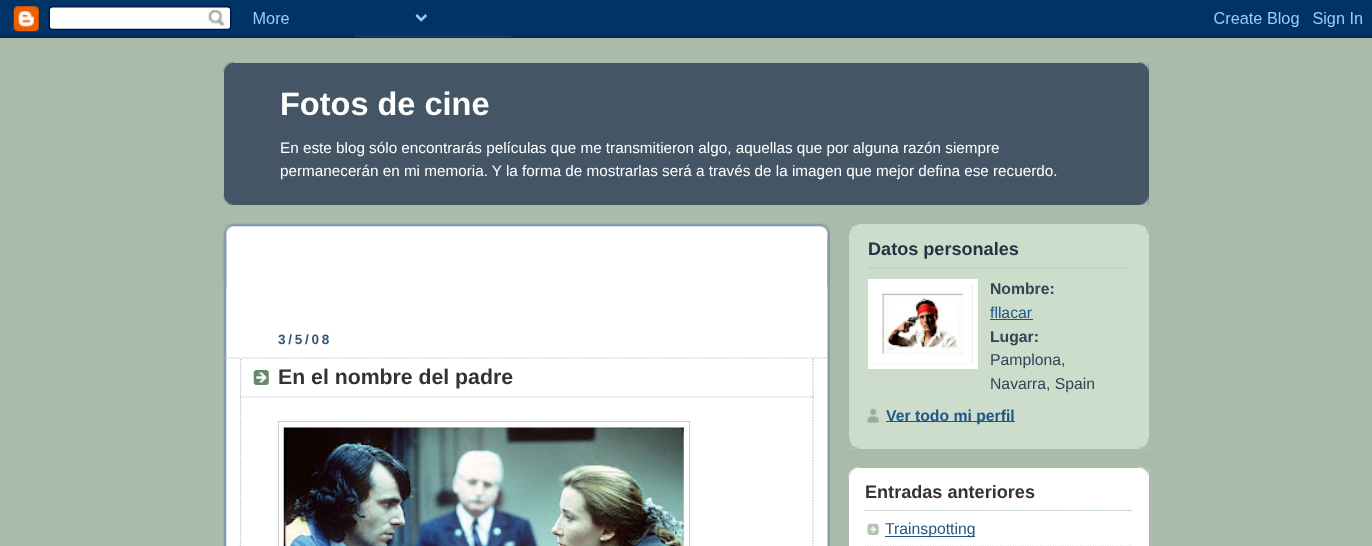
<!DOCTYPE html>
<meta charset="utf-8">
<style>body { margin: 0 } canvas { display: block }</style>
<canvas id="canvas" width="1372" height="546"></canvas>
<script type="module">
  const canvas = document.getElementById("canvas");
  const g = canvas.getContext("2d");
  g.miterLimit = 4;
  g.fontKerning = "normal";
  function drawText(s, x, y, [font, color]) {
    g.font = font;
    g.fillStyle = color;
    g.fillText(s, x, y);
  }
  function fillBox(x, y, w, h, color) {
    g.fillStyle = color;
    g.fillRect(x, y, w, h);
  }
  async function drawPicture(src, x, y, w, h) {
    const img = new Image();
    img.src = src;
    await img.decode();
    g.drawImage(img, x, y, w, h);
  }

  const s1 = ["bold 32.5px Liberation Sans", "#FFFFFF"];
  const s2 = ["15.28px Liberation Sans", "#FFFFFF"];
  const s3 = ["bold 13.5px Liberation Sans", "#335577"];
  const s4 = ["bold 21.25px Liberation Sans", "#333333"];
  const s5 = ["bold 18.1px Liberation Sans", "#223344"];
  const s6 = ["bold 15.75px Liberation Sans", "#334455"];
  const s7 = ["15.75px Liberation Sans", "#225588"];
  const s8 = ["15.75px Liberation Sans", "#334455"];
  const s9 = ["bold 15.75px Liberation Sans", "#225588"];
  const s10 = ["bold 18.1px Liberation Sans", "#333333"];

  fillBox(0, 0, 1372, 546, "#AABBAA");
  await drawPicture("pic1.png", 0, 0, 1372, 38);
  fillBox(224, 63, 925, 142, "#445566");
  await drawPicture("pic2.png", 223, 62, 926, 11);
  await drawPicture("pic3.png", 223, 195, 926, 10);
  drawText("Fotos de cine", 280, 115, s1);
  drawText("En este blog sólo encontrarás películas que me transmitieron algo, aquellas que por alguna razón siempre", 280, 153, s2);
  drawText("permanecerán en mi memoria. Y la forma de mostrarlas será a través de la imagen que mejor defina ese recuerdo.", 280, 176, s2);
  fillBox(226, 226, 602, 320, "#FFFFFF");
  await drawPicture("pic4.png", 223, 223, 607, 64);
  await drawPicture("pic5.png", 223, 236, 607, 310);
  g.letterSpacing = "2.75px";
  drawText("3/5/08", 278, 344, s3);
  g.beginPath();
  g.moveTo(224, 358);
  g.lineTo(830, 358);
  g.strokeStyle = "#BBBBBB";
  g.lineWidth = 1.2;
  g.setLineDash([1.25, 1.25]);
  g.stroke();
  await drawPicture("pic6.png", 253, 370, 16, 15);
  g.beginPath();
  g.moveTo(813, 359);
  g.lineTo(813, 397.5);
  g.stroke();
  g.beginPath();
  g.moveTo(240, 397);
  g.lineTo(814, 397);
  g.stroke();
  g.beginPath();
  g.moveTo(240.5, 359);
  g.lineTo(240.5, 397.5);
  g.stroke();
  g.letterSpacing = "0px";
  drawText("En el nombre del padre", 278, 384, s4);
  g.beginPath();
  g.moveTo(813, 397.5);
  g.lineTo(813, 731);
  g.stroke();
  g.beginPath();
  g.moveTo(240.5, 397.5);
  g.lineTo(240.5, 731);
  g.stroke();
  g.strokeStyle = "#CCCCCC";
  g.lineWidth = 1;
  g.setLineDash([]);
  g.strokeRect(278.5, 421.5, 411, 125);
  await drawPicture("pic7.png", 283, 427, 401, 119);
  fillBox(849, 224, 300, 225, "#CCDDCC");
  await drawPicture("pic8.png", 849, 438, 300, 11);
  await drawPicture("pic9.png", 849, 224, 300, 10);
  drawText("Datos personales", 868, 255, s5);
  g.beginPath();
  g.moveTo(867.5, 268);
  g.lineTo(1130, 268);
  g.strokeStyle = "#AABBAA";
  g.lineWidth = 1.2;
  g.setLineDash([1.25, 1.25]);
  g.stroke();
  g.strokeStyle = "#FFFFFF";
  g.lineWidth = 5;
  g.setLineDash([]);
  g.strokeRect(870.5, 281.5, 105, 85);
  await drawPicture("pic10.png", 873, 284, 100, 80);
  drawText("Nombre:", 990, 294, s6);
  drawText("fllacar", 990, 318, s7);
  fillBox(990, 319, 43, 1, "#225588");
  drawText("Lugar:", 990, 342, s6);
  drawText("Pamplona,", 990, 365, s8);
  drawText("Navarra, Spain", 990, 389, s8);
  await drawPicture("pic11.png", 867, 408, 12, 15);
  fillBox(886, 421, 129, 1, "#225588");
  drawText("Ver todo mi perfil", 886, 421, s9);
  fillBox(849, 468, 300, 78, "#FFFFFF");
  await drawPicture("pic12.png", 848, 467, 301, 11);
  g.beginPath();
  g.moveTo(865, 510.5);
  g.lineTo(1132.5, 510.5);
  g.strokeStyle = "#99BB99";
  g.lineWidth = 1.2;
  g.setLineDash([1.25, 1.25]);
  g.stroke();
  drawText("Entradas anteriores", 865, 498, s10);
  await drawPicture("pic13.png", 867, 523, 12, 12);
  g.beginPath();
  g.moveTo(865, 545.5);
  g.lineTo(1132.5, 545.5);
  g.strokeStyle = "#EEEEEE";
  g.stroke();
  fillBox(885, 536, 90, 1, "#225588");
  drawText("Trainspotting", 885, 534, s7);
</script>
